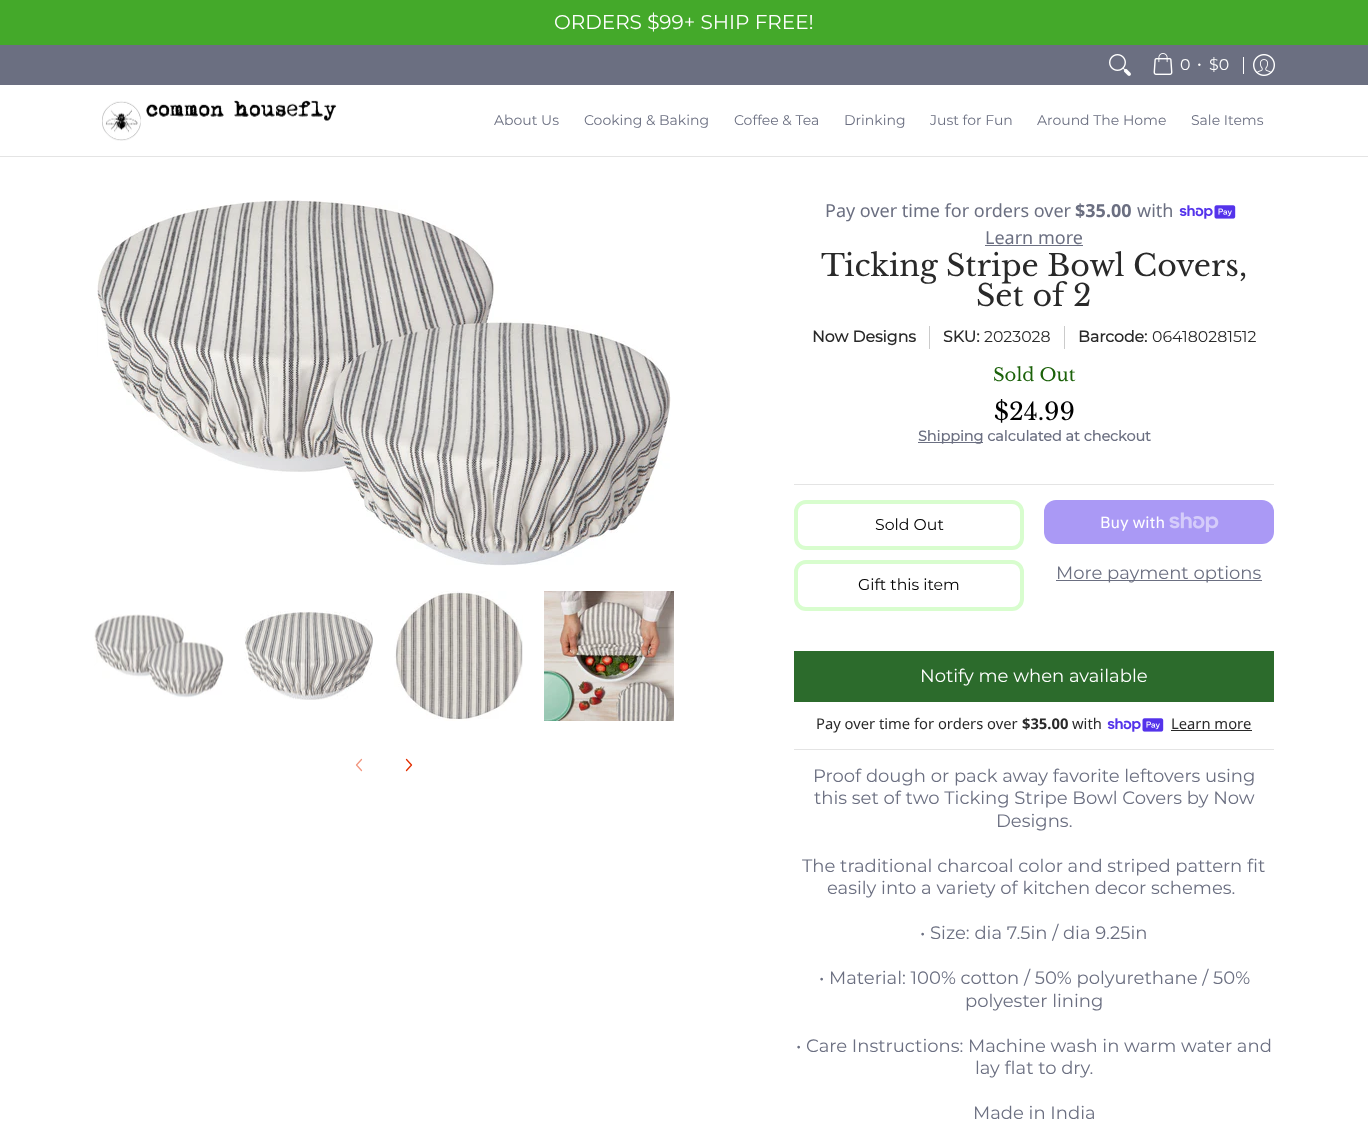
<!DOCTYPE html>
<meta charset="utf-8">
<style>body { margin: 0 } canvas { display: block }</style>
<canvas id="canvas" width="1368" height="1145"></canvas>
<script type="module">
  const canvas = document.getElementById("canvas");
  const g = canvas.getContext("2d");
  g.miterLimit = 4;
  g.fontKerning = "normal";
  function drawText(s, x, y, [font, color]) {
    g.font = font;
    g.fillStyle = color;
    g.fillText(s, x, y);
  }
  function fillBox(x, y, w, h, color) {
    g.fillStyle = color;
    g.fillRect(x, y, w, h);
  }
  function fillRounded(x, y, w, h, r, color) {
    g.fillStyle = color;
    g.beginPath();
    g.roundRect(x, y, w, h, r);
    g.fill();
  }
  async function drawPicture(src, x, y, w, h) {
    const img = new Image();
    img.src = src;
    await img.decode();
    g.drawImage(img, x, y, w, h);
  }

  const s1 = ["20px Montserrat", "#FFFFFF"];
  const s2 = ["15.75px Montserrat", "#FFFFFF"];
  const s3 = ["14px Montserrat", "#6B6F81"];
  const s4 = ["18px Noto Sans", "#6B6F81"];
  const s5 = ["bold 18px Noto Sans", "#6B6F81"];
  const s6 = ["30px Libre Baskerville", "#292929"];
  const s7 = ["bold 15.75px Montserrat", "#292929"];
  const s8 = ["15.75px Montserrat", "#292929"];
  const s9 = ["18px Libre Baskerville", "#1B6109"];
  const s10 = ["24px Libre Baskerville", "#000000"];
  const s11 = ["bold 14.4px Montserrat", "#6B6F81"];
  const s12 = ["15.75px Montserrat", "#000000"];
  const s13 = ["16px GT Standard", "#FFFFFF"];
  const s14 = ["18px Montserrat", "#6B6F81"];
  const s15 = ["18px Montserrat", "#FFFFFF"];
  const s16 = ["14.75px Noto Sans", "#292929"];
  const s17 = ["bold 14.75px Noto Sans", "#292929"];

  fillBox(0, 0, 1368, 1145, "#FFFFFF");
  fillBox(0, 0, 1368, 45, "#44A92A");
  drawText("ORDERS $99+ SHIP FREE!", 554, 29, s1);
  fillBox(0, 45, 1368, 40, "#6B6F81");
  await drawPicture("pic1.png", 1109, 54, 22, 22);
  await drawPicture("pic2.png", 1153, 53, 20, 22);
  drawText("0", 1180, 70, s2);
  drawText("•", 1197, 69, s2);
  drawText("$0", 1209, 70, s2);
  fillBox(1243, 57, 1, 17, "#FFFFFF");
  await drawPicture("pic3.png", 1253, 54, 22, 22);
  fillBox(0, 156, 1368, 1, "#E4E4E4");
  await drawPicture("pic4.png", 102, 100, 235, 41);
  drawText("About Us", 494, 125, s3);
  drawText("Cooking & Baking", 584, 125, s3);
  drawText("Coffee & Tea", 734, 125, s3);
  drawText("Drinking", 844, 125, s3);
  drawText("Just for Fun", 930, 125, s3);
  drawText("Around The Home", 1037, 125, s3);
  drawText("Sale Items", 1191, 125, s3);
  await drawPicture("pic5.png", 97, 200, 574, 366);
  await drawPicture("pic6.png", 94, 614, 130, 84);
  await drawPicture("pic7.png", 244, 611, 129, 89);
  await drawPicture("pic8.png", 394, 591, 129, 130);
  await drawPicture("pic9.png", 544, 591, 130, 130);
  g.beginPath();
  g.moveTo(361.5, 759.5);
  g.lineTo(356.5, 765);
  g.lineTo(361.5, 770.5);
  g.strokeStyle = "#F19780";
  g.lineWidth = 1.3;
  g.lineCap = "round";
  g.lineJoin = "round";
  g.stroke();
  g.beginPath();
  g.moveTo(406.5, 770.5);
  g.lineTo(411.5, 765);
  g.lineTo(406.5, 759.5);
  g.strokeStyle = "#E32E00";
  g.stroke();
  drawText("Pay over time for orders over", 825, 217, s4);
  drawText("$35.00", 1075, 217, s5);
  drawText("with", 1137, 217, s4);
  await drawPicture("pic10.png", 1179, 205, 57, 14);
  drawText("Learn more", 985, 244, s4);
  fillBox(985, 245, 98, 1, "#6B6F81");
  drawText("Ticking Stripe Bowl Covers,", 821, 276, s6);
  drawText("Set of 2", 976, 306, s6);
  drawText("Now Designs", 812, 342, s7);
  fillBox(929, 326, 1, 23, "#CBCBCB");
  drawText("SKU:", 943, 342, s7);
  drawText("2023028", 984, 342, s8);
  fillBox(1064, 326, 1, 23, "#CBCBCB");
  drawText("Barcode:", 1078, 342, s7);
  drawText("064180281512", 1152, 342, s8);
  drawText("Sold Out", 993, 381, s9);
  fillBox(794, 484, 480, 1, "#E4E4E4");
  drawText("$24.99", 994, 420, s10);
  fillBox(918, 442, 65, 1, "#6B6F81");
  drawText("Shipping calculated at checkout", 918, 441, s11);
  g.beginPath();
  g.roundRect(796, 502, 226, 46, 10);
  g.strokeStyle = "#D8FDCE";
  g.lineWidth = 4;
  g.lineJoin = "miter";
  g.stroke();
  drawText("Sold Out", 875, 530, s12);
  g.beginPath();
  g.roundRect(796, 562, 226, 47, 10);
  g.stroke();
  drawText("Gift this item", 858, 590, s12);
  fillRounded(1044, 500, 230, 44, 12, "#AA99F5");
  drawText("Buy with", 1100, 528, s13);
  await drawPicture("pic11.png", 1169, 512, 50, 20);
  fillBox(1056, 580, 206, 1, "#6B6F81");
  drawText("More payment options", 1056, 579, s14);
  fillBox(794, 651, 480, 51, "#2C6B2C");
  drawText("Notify me when available", 920, 682, s15);
  fillBox(794, 749, 480, 1, "#E4E4E4");
  drawText("Pay over time for orders over", 816, 729, s16);
  drawText("$35.00", 1022, 729, s17);
  drawText("with", 1072, 729, s16);
  await drawPicture("pic10.png", 1107, 718, 57, 14);
  drawText("Learn more", 1171, 729, s16);
  fillBox(1171, 730, 81, 1, "#292929");
  drawText("Proof dough or pack away favorite leftovers using", 813, 782, s14);
  drawText("this set of two Ticking Stripe Bowl Covers by Now", 814, 804, s14);
  drawText("Designs.", 996, 827, s14);
  drawText("The traditional charcoal color and striped pattern fit", 802, 872, s14);
  drawText("easily into a variety of kitchen decor schemes.", 827, 894, s14);
  drawText("• Size: dia 7.5in / dia 9.25in", 920, 939, s14);
  drawText("• Material: 100% cotton / 50% polyurethane / 50%", 819, 984, s14);
  drawText("polyester lining", 965, 1007, s14);
  drawText("• Care Instructions: Machine wash in warm water and", 796, 1052, s14);
  drawText("lay flat to dry.", 975, 1074, s14);
  drawText("Made in India", 973, 1119, s14);
</script>
